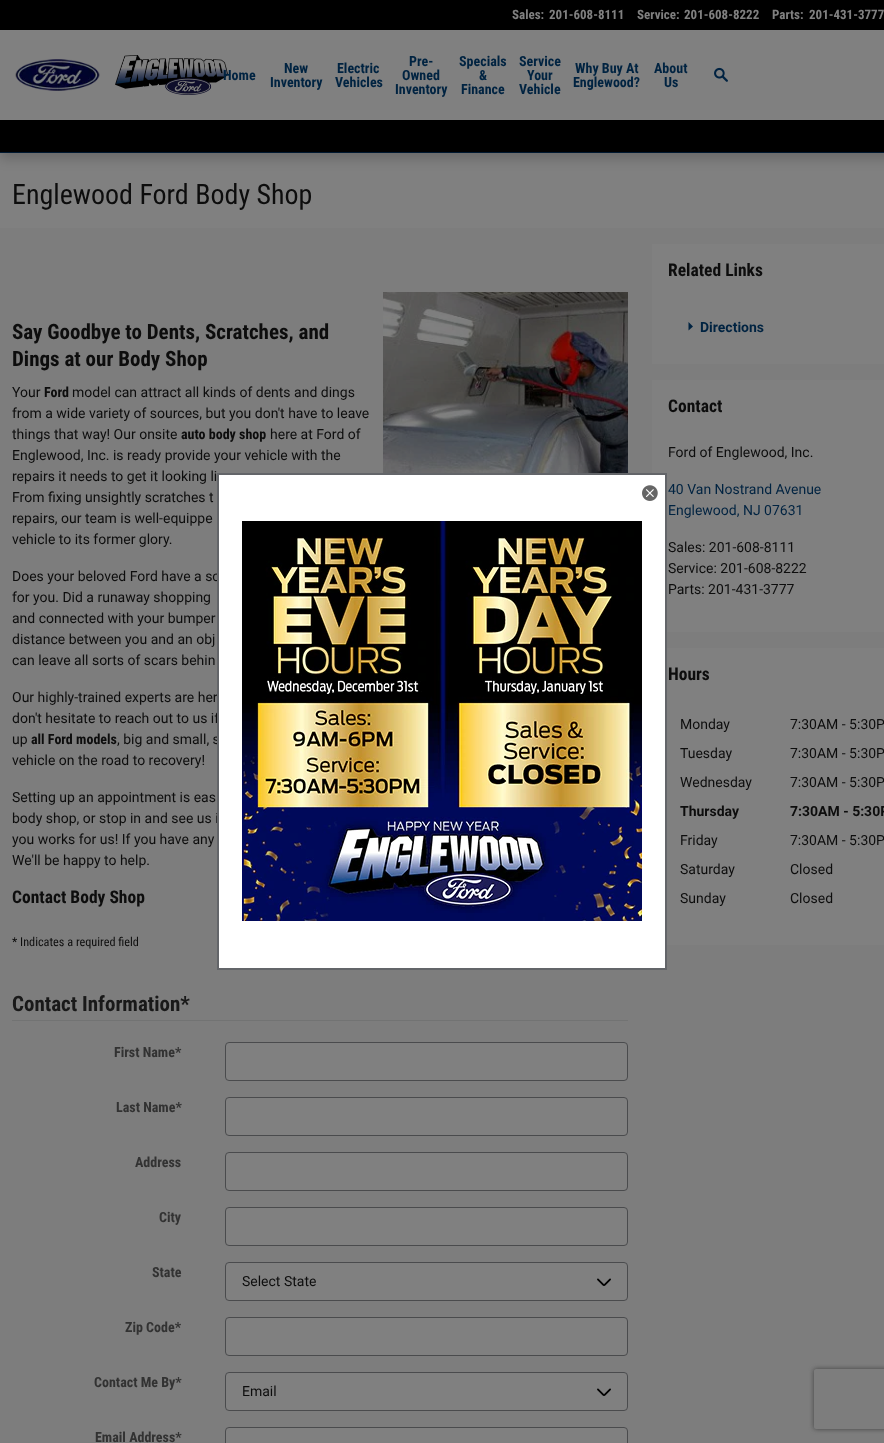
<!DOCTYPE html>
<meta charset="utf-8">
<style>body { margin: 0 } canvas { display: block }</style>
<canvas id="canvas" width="884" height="1443"></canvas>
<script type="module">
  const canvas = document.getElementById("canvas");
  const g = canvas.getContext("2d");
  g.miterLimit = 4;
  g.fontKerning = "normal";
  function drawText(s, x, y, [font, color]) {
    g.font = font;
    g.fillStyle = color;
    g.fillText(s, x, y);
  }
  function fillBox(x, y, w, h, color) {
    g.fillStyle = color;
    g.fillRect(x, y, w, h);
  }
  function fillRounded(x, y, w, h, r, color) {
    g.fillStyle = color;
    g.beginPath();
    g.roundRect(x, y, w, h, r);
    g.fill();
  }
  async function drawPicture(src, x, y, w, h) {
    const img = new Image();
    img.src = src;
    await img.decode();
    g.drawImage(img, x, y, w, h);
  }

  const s1 = ["bold 13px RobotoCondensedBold", "#808080"];
  const s2 = ["bold 14px RobotoCondensedBold", "#002341"];
  const s3 = ["28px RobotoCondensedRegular", "#0D0D0D"];
  const s4 = ["bold 21px RobotoCondensedBold", "#0D0D0D"];
  const s5 = ["14px Roboto", "#0D0D0D"];
  const s6 = ["bold 14px RobotoCondensedBold", "#0D0D0D"];
  const s7 = ["bold 17.5px RobotoCondensedBold", "#0D0D0D"];
  const s8 = ["12.25px RobotoCondensedRegular", "#0D0D0D"];
  const s9 = ["bold 21px RobotoCondensedBold", "#191919"];
  const s10 = ["bold 14px RobotoCondensedBold", "#323232"];
  const s11 = ["bold 14px Roboto", "#002341"];
  const s12 = ["14px Roboto", "#002341"];
  const s13 = ["bold 14px Roboto", "#0D0D0D"];

  fillBox(0, 0, 884, 1443, "#7D7D7D");
  fillBox(0, 153, 884, 75, "#808080");
  g.fillStyle = "rgba(0, 0, 0, 0.18)";
  g.filter = "blur(6px)";
  g.beginPath();
  g.rect(0, 6, 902, 153);
  g.fill();
  g.filter = "none";
  fillBox(0, 30, 884, 90, "#808080");
  fillBox(0, 152, 884, 1, "#001830");
  fillBox(0, 0, 884, 30, "#000000");
  drawText("Sales:", 512, 19, s1);
  drawText("201-608-8111", 549, 19, s1);
  drawText("Service:", 637, 19, s1);
  drawText("201-608-8222", 684, 19, s1);
  drawText("Parts:", 772, 19, s1);
  drawText("201-431-3777", 809, 19, s1);
  await drawPicture("pic1.png", 15, 59, 85, 32);
  await drawPicture("pic2.png", 115, 55, 113, 40);
  drawText("Home", 223, 80, s2);
  drawText("New", 284, 73, s2);
  drawText("Inventory", 270, 87, s2);
  drawText("Electric", 337, 73, s2);
  drawText("Vehicles", 335, 87, s2);
  drawText("Pre-", 409, 66, s2);
  drawText("Owned", 402, 80, s2);
  drawText("Inventory", 395, 94, s2);
  drawText("Specials", 459, 66, s2);
  drawText("&", 479, 80, s2);
  drawText("Finance", 461, 94, s2);
  drawText("Service", 519, 66, s2);
  drawText("Your", 527, 80, s2);
  drawText("Vehicle", 519, 94, s2);
  drawText("Why Buy At", 575, 73, s2);
  drawText("Englewood?", 573, 87, s2);
  drawText("About", 654, 73, s2);
  drawText("Us", 664, 87, s2);
  await drawPicture("pic3.png", 714, 67, 14, 15);
  fillBox(0, 120, 884, 32, "#000000");
  drawText("Englewood Ford Body Shop", 12, 204, s3);
  drawText("Say Goodbye to Dents, Scratches, and", 12, 339, s4);
  drawText("Dings at our Body Shop", 12, 366, s4);
  await drawPicture("pic4.png", 383, 292, 245, 181);
  drawText("Your", 12, 397, s5);
  drawText("Ford", 44, 397, s6);
  drawText("model can attract all kinds of dents and dings", 72, 397, s5);
  drawText("from a wide variety of sources, but you don't have to leave", 12, 418, s5);
  drawText("things that way! Our onsite", 12, 439, s5);
  drawText("auto body shop", 181, 439, s6);
  drawText("here at Ford of", 270, 439, s5);
  drawText("Englewood, Inc. is ready provide your vehicle with the", 12, 460, s5);
  drawText("repairs it needs to get it looking li", 12, 481, s5);
  drawText("From fixing unsightly scratches t", 12, 502, s5);
  drawText("repairs, our team is well-equippe", 12, 523, s5);
  drawText("vehicle to its former glory.", 12, 544, s5);
  drawText("Does your beloved Ford have a sc", 12, 581, s5);
  drawText("for you. Did a runaway shopping", 12, 602, s5);
  drawText("and connected with your bumper", 12, 623, s5);
  drawText("distance between you and an obj", 12, 644, s5);
  drawText("can leave all sorts of scars behin", 12, 665, s5);
  drawText("Our highly-trained experts are her", 12, 702, s5);
  drawText("don't hesitate to reach out to us if", 12, 723, s5);
  drawText("up", 12, 744, s5);
  drawText("all Ford models", 31, 744, s6);
  drawText(", big and small, s", 117, 744, s5);
  drawText("vehicle on the road to recovery!", 12, 765, s5);
  drawText("Setting up an appointment is eas", 12, 802, s5);
  drawText("body shop, or stop in and see us i", 12, 823, s5);
  drawText("you works for us! If you have any", 12, 844, s5);
  drawText("We'll be happy to help.", 12, 865, s5);
  drawText("Contact Body Shop", 12, 903, s7);
  drawText("* Indicates a required field", 12, 946, s8);
  fillBox(12, 1020, 616, 1, "#727373");
  drawText("Contact Information*", 12, 1011, s9);
  drawText("First Name*", 114, 1057, s10);
  g.fillStyle = "#808080";
  g.beginPath();
  g.roundRect(225.5, 1042.5, 402, 38, 3.5);
  g.fill();
  g.strokeStyle = "#4A4B4D";
  g.stroke();
  drawText("Last Name*", 116, 1112, s10);
  g.fillStyle = "#808080";
  g.beginPath();
  g.roundRect(225.5, 1097.5, 402, 38, 3.5);
  g.fill();
  g.stroke();
  drawText("Address", 135, 1167, s10);
  g.fillStyle = "#808080";
  g.beginPath();
  g.roundRect(225.5, 1152.5, 402, 38, 3.5);
  g.fill();
  g.stroke();
  drawText("City", 159, 1222, s10);
  g.fillStyle = "#808080";
  g.beginPath();
  g.roundRect(225.5, 1207.5, 402, 38, 3.5);
  g.fill();
  g.stroke();
  drawText("State", 152, 1277, s10);
  fillRounded(225, 1262, 403, 39, 4, "#808080");
  await drawPicture("pic5.png", 597, 1278, 14, 8);
  g.beginPath();
  g.roundRect(225.5, 1262.5, 402, 38, 3.5);
  g.stroke();
  drawText("Select State", 242, 1286, s5);
  drawText("Zip Code*", 125, 1332, s10);
  g.fillStyle = "#808080";
  g.beginPath();
  g.roundRect(225.5, 1317.5, 402, 38, 3.5);
  g.fill();
  g.stroke();
  drawText("Contact Me By*", 94, 1387, s10);
  fillRounded(225, 1372, 403, 39, 4, "#808080");
  await drawPicture("pic5.png", 597, 1388, 14, 8);
  g.beginPath();
  g.roundRect(225.5, 1372.5, 402, 38, 3.5);
  g.stroke();
  drawText("Email", 242, 1396, s5);
  drawText("Email Address*", 95, 1442, s10);
  g.fillStyle = "#808080";
  g.beginPath();
  g.roundRect(225.5, 1427.5, 402, 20, 3.5);
  g.fill();
  g.stroke();
  fillBox(652, 244, 232, 120, "#808080");
  drawText("Related Links", 668, 276, s7);
  g.fillStyle = "#002341";
  g.beginPath();
  g.moveTo(688.5, 322);
  g.lineTo(688.5, 330.5);
  g.lineTo(693, 326.5);
  g.closePath();
  g.fill();
  drawText("Directions", 700, 332, s11);
  fillBox(652, 380, 232, 252, "#808080");
  drawText("Contact", 668, 412, s7);
  drawText("Ford of Englewood, Inc.", 668, 457, s5);
  drawText("40 Van Nostrand Avenue", 668, 494, s12);
  drawText("Englewood, NJ 07631", 668, 515, s12);
  drawText("Sales: 201-608-8111", 668, 552, s5);
  drawText("Service: 201-608-8222", 668, 573, s5);
  drawText("Parts: 201-431-3777", 668, 594, s5);
  fillBox(667, 648, 217, 297, "#808080");
  drawText("Hours", 668, 680, s7);
  drawText("Monday", 680, 729, s5);
  drawText("7:30AM - 5:30P", 790, 729, s5);
  drawText("Tuesday", 680, 758, s5);
  drawText("7:30AM - 5:30P", 790, 758, s5);
  drawText("Wednesday", 680, 787, s5);
  drawText("7:30AM - 5:30P", 790, 787, s5);
  drawText("Thursday", 680, 816, s13);
  drawText("7:30AM - 5:30P", 790, 816, s13);
  drawText("Friday", 680, 845, s5);
  drawText("7:30AM - 5:30P", 790, 845, s5);
  drawText("Saturday", 680, 874, s5);
  drawText("Closed", 790, 874, s5);
  drawText("Sunday", 680, 903, s5);
  drawText("Closed", 790, 903, s5);
  g.fillStyle = "#FFFFFF";
  g.beginPath();
  g.rect(218, 474, 448, 495);
  g.fill();
  g.strokeStyle = "#636569";
  g.lineWidth = 2;
  g.stroke();
  await drawPicture("pic6.png", 642, 485, 16, 16);
  await drawPicture("pic7.png", 242, 521, 400, 400);
  g.save();
  g.beginPath();
  g.moveTo(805, 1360);
  g.lineTo(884, 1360);
  g.lineTo(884, 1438);
  g.lineTo(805, 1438);
  g.closePath();
  g.moveTo(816, 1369);
  g.lineTo(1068, 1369);
  g.bezierCurveTo(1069, 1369, 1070, 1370, 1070, 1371);
  g.lineTo(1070, 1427);
  g.bezierCurveTo(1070, 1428, 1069, 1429, 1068, 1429);
  g.lineTo(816, 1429);
  g.bezierCurveTo(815, 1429, 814, 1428, 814, 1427);
  g.lineTo(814, 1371);
  g.bezierCurveTo(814, 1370, 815, 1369, 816, 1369);
  g.closePath();
  g.clip("evenodd");
  g.fillStyle = "#404040";
  g.filter = "blur(2.5px)";
  g.beginPath();
  g.roundRect(814, 1369, 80, 60, 2);
  g.fill();
  g.filter = "none";
  g.restore();
</script>
